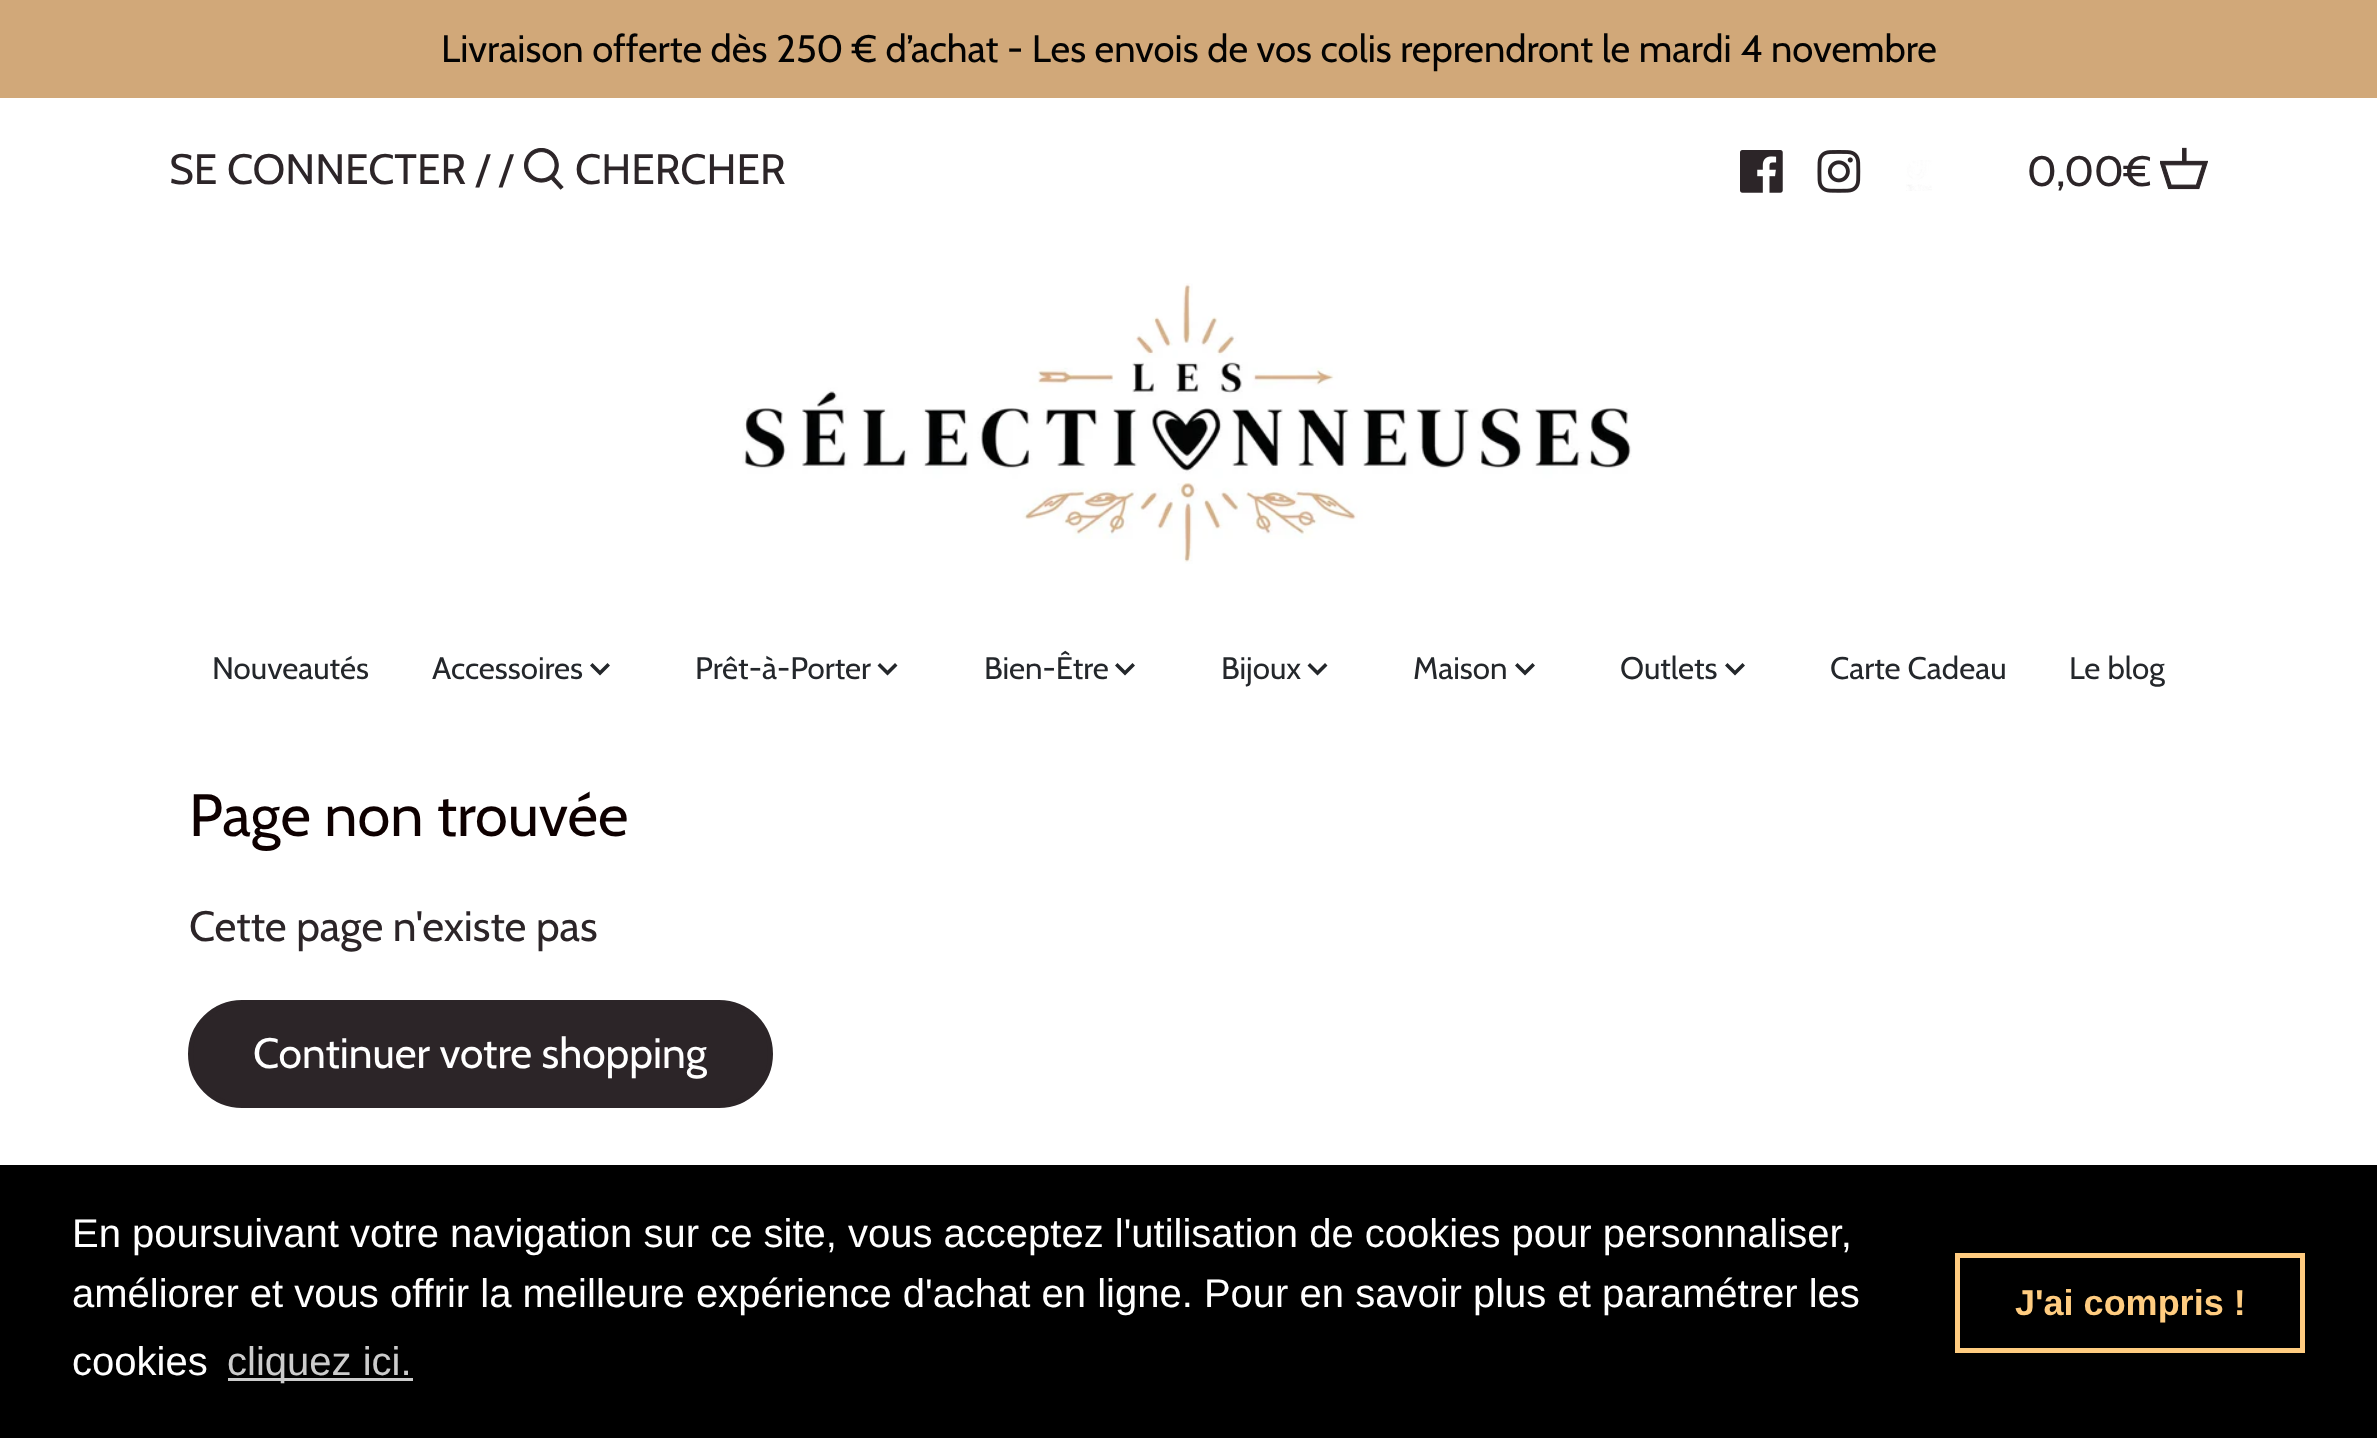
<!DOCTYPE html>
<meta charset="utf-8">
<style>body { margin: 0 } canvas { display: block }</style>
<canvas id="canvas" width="2377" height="1438"></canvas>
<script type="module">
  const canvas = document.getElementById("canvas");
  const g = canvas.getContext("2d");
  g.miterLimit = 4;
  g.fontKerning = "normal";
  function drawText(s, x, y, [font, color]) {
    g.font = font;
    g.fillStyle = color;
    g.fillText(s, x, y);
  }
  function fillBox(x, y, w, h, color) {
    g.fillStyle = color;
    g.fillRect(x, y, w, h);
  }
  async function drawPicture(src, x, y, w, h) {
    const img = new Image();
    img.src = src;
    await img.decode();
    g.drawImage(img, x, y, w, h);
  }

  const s1 = ["38.25px Cabin", "#030303"];
  const s2 = ["42.5px Cabin", "#2C2528"];
  const s3 = ["31.25px Cabin", "#24272B"];
  const s4 = ["59.5px Cabin", "#0E0000"];
  const s5 = ["42.5px Cabin", "#FFFFFF"];
  const s6 = ["40px Liberation Sans", "#FFFFFF"];
  const s7 = ["40px Liberation Sans", "#CCCCCC"];
  const s8 = ["bold 36px Liberation Sans", "#FFCC80"];

  fillBox(0, 0, 2377, 1438, "#FFFFFF");
  fillBox(0, 0, 2377, 98, "#D1A879");
  drawText("Livraison offerte dès 250 € d’achat - Les envois de vos colis reprendront le mardi 4 novembre", 441, 62, s1);
  drawText("SE CONNECTER / /", 169, 184, s2);
  await drawPicture("pic1.png", 524, 148, 40, 42);
  drawText("CHERCHER", 575, 184, s2);
  await drawPicture("pic2.png", 1740, 150, 43, 43);
  await drawPicture("pic3.png", 1817, 150, 44, 43);
  await drawPicture("pic4.png", 1906, 160, 26, 31);
  drawText("0,00€", 2027, 186, s2);
  await drawPicture("pic5.png", 2160, 147, 48, 43);
  await drawPicture("pic6.png", 742, 283, 890, 281);
  drawText("Nouveautés", 212, 679, s3);
  drawText("Accessoires", 432, 679, s3);
  g.beginPath();
  g.moveTo(592.5, 663);
  g.lineTo(600, 670.5);
  g.lineTo(607.5, 663);
  g.lineTo(610, 665.5);
  g.lineTo(600, 675.5);
  g.lineTo(590, 665.5);
  g.closePath();
  g.fill();
  drawText("Prêt-à-Porter", 695, 679, s3);
  g.beginPath();
  g.moveTo(880, 663);
  g.lineTo(887.5, 670.5);
  g.lineTo(895, 663);
  g.lineTo(897.5, 665.5);
  g.lineTo(887.5, 675.5);
  g.lineTo(877.5, 665.5);
  g.closePath();
  g.fill();
  drawText("Bien-Être", 984, 679, s3);
  g.beginPath();
  g.moveTo(1117.5, 663);
  g.lineTo(1125, 670.5);
  g.lineTo(1132.5, 663);
  g.lineTo(1135, 665.5);
  g.lineTo(1125, 675.5);
  g.lineTo(1115, 665.5);
  g.closePath();
  g.fill();
  drawText("Bijoux", 1221, 679, s3);
  g.beginPath();
  g.moveTo(1310, 663);
  g.lineTo(1317.5, 670.5);
  g.lineTo(1325, 663);
  g.lineTo(1327.5, 665.5);
  g.lineTo(1317.5, 675.5);
  g.lineTo(1307.5, 665.5);
  g.closePath();
  g.fill();
  drawText("Maison", 1413, 679, s3);
  g.beginPath();
  g.moveTo(1517.5, 663);
  g.lineTo(1525, 670.5);
  g.lineTo(1532.5, 663);
  g.lineTo(1535, 665.5);
  g.lineTo(1525, 675.5);
  g.lineTo(1515, 665.5);
  g.closePath();
  g.fill();
  drawText("Outlets", 1620, 679, s3);
  g.beginPath();
  g.moveTo(1727.5, 663);
  g.lineTo(1735, 670.5);
  g.lineTo(1742.5, 663);
  g.lineTo(1745, 665.5);
  g.lineTo(1735, 675.5);
  g.lineTo(1725, 665.5);
  g.closePath();
  g.fill();
  drawText("Carte Cadeau", 1830, 679, s3);
  drawText("Le blog", 2069, 679, s3);
  drawText("Page non trouvée", 189, 836, s4);
  drawText("Cette page n'existe pas", 189, 941, s2);
  g.beginPath();
  g.roundRect(190.5, 1002.5, 580, 103, 51.5);
  g.fill();
  g.strokeStyle = "#2C2528";
  g.lineWidth = 5;
  g.stroke();
  drawText("Continuer votre shopping", 253, 1068, s5);
  fillBox(0, 1165, 2377, 273, "#000000");
  drawText("En poursuivant votre navigation sur ce site, vous acceptez l'utilisation de cookies pour personnaliser,", 72, 1247, s6);
  drawText("améliorer et vous offrir la meilleure expérience d'achat en ligne. Pour en savoir plus et paramétrer les", 72, 1307, s6);
  drawText("cookies", 72, 1375, s6);
  fillBox(228, 1378, 185, 3, "#CCCCCC");
  drawText("cliquez ici.", 227, 1375, s7);
  g.strokeStyle = "#FFCC80";
  g.strokeRect(1957.5, 1255.5, 345, 95);
  drawText("J'ai compris !", 2015, 1315, s8);
</script>
